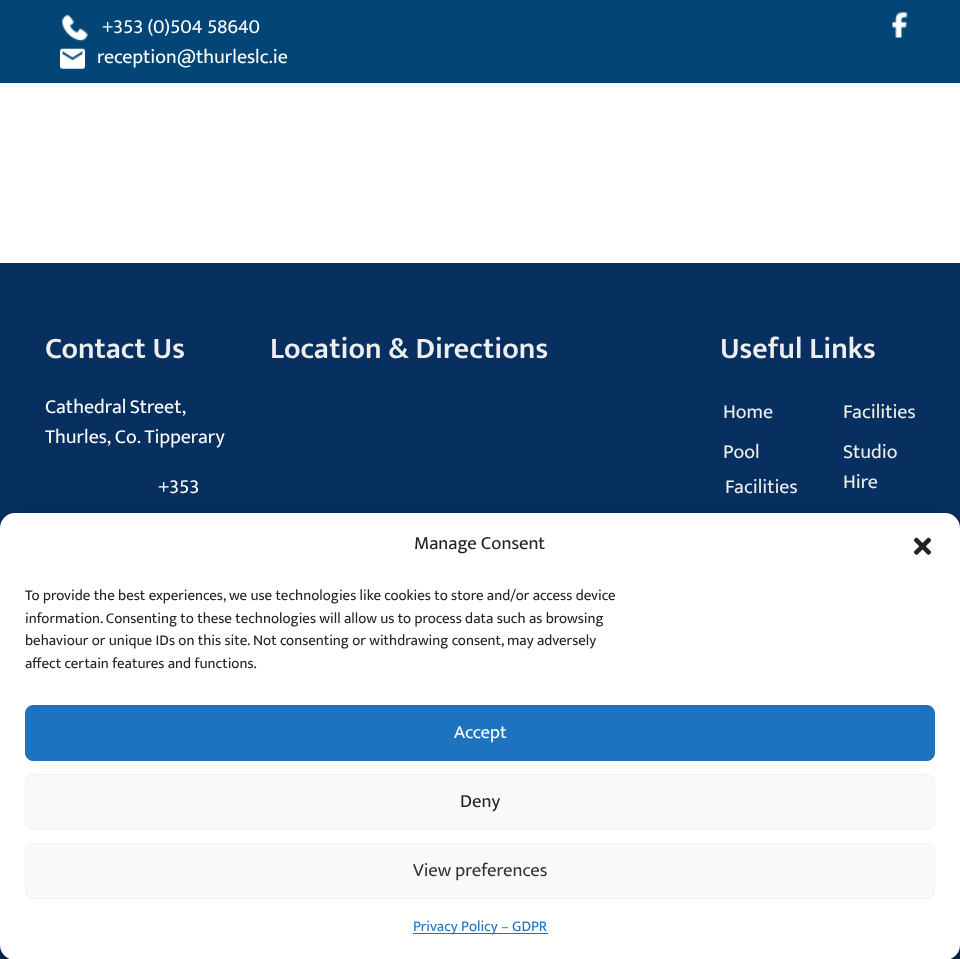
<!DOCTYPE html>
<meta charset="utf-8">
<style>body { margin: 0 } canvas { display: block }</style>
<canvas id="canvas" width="960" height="959"></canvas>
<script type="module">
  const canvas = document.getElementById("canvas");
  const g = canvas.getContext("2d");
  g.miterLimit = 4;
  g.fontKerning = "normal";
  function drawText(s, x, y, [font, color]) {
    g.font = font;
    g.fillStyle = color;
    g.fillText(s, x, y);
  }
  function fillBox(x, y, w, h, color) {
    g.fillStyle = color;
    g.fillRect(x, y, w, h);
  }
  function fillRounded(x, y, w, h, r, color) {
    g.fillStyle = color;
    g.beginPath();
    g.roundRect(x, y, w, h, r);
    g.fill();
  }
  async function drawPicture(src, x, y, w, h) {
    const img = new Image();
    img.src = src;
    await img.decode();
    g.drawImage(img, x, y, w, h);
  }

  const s1 = ["20px Mukta", "#FFFFFF"];
  const s2 = ["600 30px Mukta", "#EEEEEE"];
  const s3 = ["20px Mukta", "#EEEEEE"];
  const s4 = ["18.75px Mukta", "#222222"];
  const s5 = ["15px Mukta", "#222222"];
  const s6 = ["18.75px Mukta", "#FFFFFF"];
  const s7 = ["18.75px Mukta", "#333333"];
  const s8 = ["15px Mukta", "#1E73BE"];

  fillBox(0, 0, 960, 959, "#FFFFFF");
  fillBox(0, 0, 960, 83, "#034577");
  await drawPicture("pic1.png", 61, 14, 27, 28);
  drawText("+353 (0)504 58640", 102, 33, s1);
  await drawPicture("pic2.png", 60, 48, 25, 21);
  drawText("reception@thurleslc.ie", 97, 63, s1);
  await drawPicture("pic3.png", 892, 12, 16, 26);
  fillBox(0, 263, 960, 696, "#072F5F");
  drawText("Contact Us", 45, 358, s2);
  g.wordSpacing = "-1px";
  drawText("Cathedral Street,", 45, 413, s1);
  g.wordSpacing = "0px";
  drawText("Thurles, Co. Tipperary", 45, 443, s1);
  drawText("+353", 158, 493, s1);
  drawText("Location & Directions", 270, 358, s2);
  drawText("Useful Links", 720, 358, s2);
  drawText("Home", 723, 418, s3);
  drawText("Facilities", 843, 418, s3);
  drawText("Studio", 843, 458, s3);
  drawText("Hire", 843, 488, s3);
  drawText("Pool", 723, 458, s3);
  drawText("Facilities", 725, 493, s3);
  g.fillStyle = "rgba(0, 0, 0, 0.23)";
  g.filter = "blur(4px)";
  g.beginPath();
  g.roundRect(0, 520, 960, 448, 15);
  g.fill();
  g.filter = "none";
  g.fillStyle = "rgba(0, 0, 0, 0.19)";
  g.filter = "blur(12.5px)";
  g.beginPath();
  g.roundRect(0, 525, 960, 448, 15);
  g.fill();
  g.filter = "none";
  fillRounded(0, 513, 960, 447, 15, "#FFFFFF");
  drawText("Manage Consent", 414, 549, s4);
  await drawPicture("pic4.png", 913, 537, 19, 18);
  drawText("To provide the best experiences, we use technologies like cookies to store and/or access device", 25, 600, s5);
  drawText("information. Consenting to these technologies will allow us to process data such as browsing", 25, 623, s5);
  drawText("behaviour or unique IDs on this site. Not consenting or withdrawing consent, may adversely", 25, 645, s5);
  drawText("affect certain features and functions.", 25, 668, s5);
  g.fillStyle = "#1E73BE";
  g.beginPath();
  g.roundRect(25.5, 705.5, 909, 55, 7.5);
  g.fill();
  g.strokeStyle = "#1E73BE";
  g.stroke();
  drawText("Accept", 454, 738, s6);
  g.fillStyle = "#F9F9F9";
  g.beginPath();
  g.roundRect(25.5, 774.5, 909, 55, 7.5);
  g.fill();
  g.strokeStyle = "#F2F2F2";
  g.stroke();
  drawText("Deny", 460, 807, s4);
  g.fillStyle = "#F9F9F9";
  g.beginPath();
  g.roundRect(25.5, 843.5, 909, 55, 7.5);
  g.fill();
  g.stroke();
  drawText("View preferences", 413, 876, s7);
  fillBox(413, 933, 135, 1, "#1E73BE");
  drawText("Privacy Policy – GDPR", 413, 931, s8);
</script>
